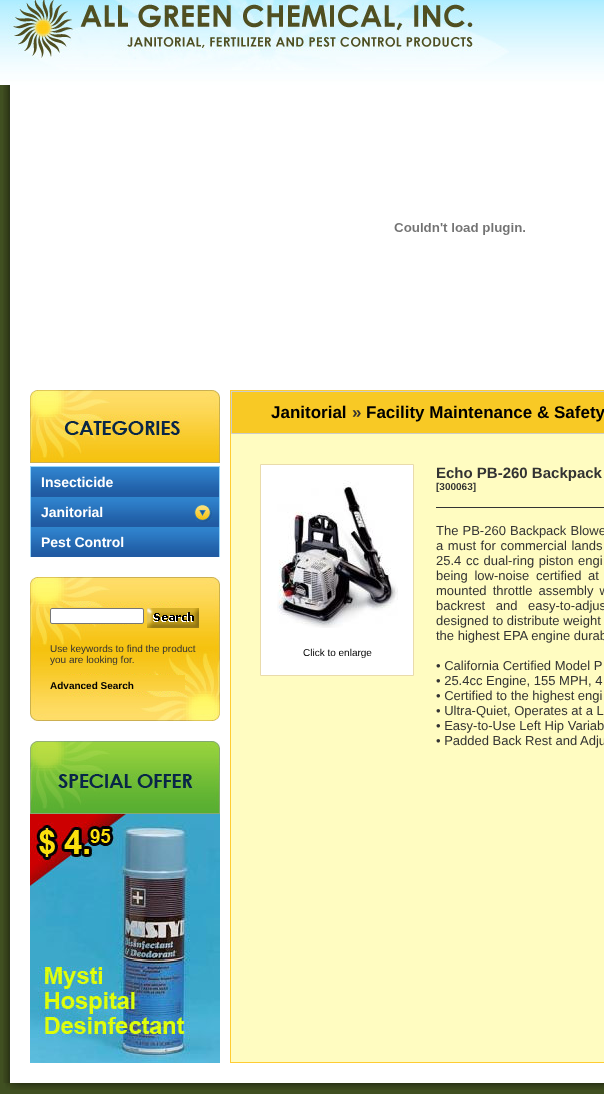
<!DOCTYPE html>
<meta charset="utf-8">
<style>body { margin: 0 } canvas { display: block }</style>
<canvas id="canvas" width="604" height="1094"></canvas>
<script type="module">
  const canvas = document.getElementById("canvas");
  const g = canvas.getContext("2d");
  g.miterLimit = 4;
  g.fontKerning = "normal";
  function drawText(s, x, y, [font, color]) {
    g.font = font;
    g.fillStyle = color;
    g.fillText(s, x, y);
  }
  function fillBox(x, y, w, h, color) {
    g.fillStyle = color;
    g.fillRect(x, y, w, h);
  }
  async function drawPicture(src, x, y, w, h) {
    const img = new Image();
    img.src = src;
    await img.decode();
    g.drawImage(img, x, y, w, h);
  }

  const s1 = ["bold 14px Liberation Sans", "#FFFFFF"];
  const s2 = ["10px Liberation Sans", "#333333"];
  const s3 = ["bold 10px Liberation Sans", "#000000"];
  const s4 = ["bold 17px Liberation Sans", "#000000"];
  const s5 = ["bold 17px Liberation Sans", "#333333"];
  const s6 = ["10px Liberation Sans", "#000000"];
  const s7 = ["bold 15px Liberation Sans", "#333333"];
  const s8 = ["bold 10px Liberation Sans", "#333333"];
  const s9 = ["13px Liberation Sans", "#333333"];

  fillBox(0, 0, 604, 1094, "#405021");
  await drawPicture("pic1.png", 0, 0, 604, 85);
  await drawPicture("pic2.png", 8, 0, 501, 70);
  await drawPicture("pic3.png", 3, 85, 7, 998);
  fillBox(10, 85, 594, 998, "#FFFFFF");
  await drawPicture("pic4.png", 394, 223, 131, 12);
  await drawPicture("pic5.png", 30, 390, 190, 73);
  fillBox(30, 466, 190, 1, "#98D6FA");
  fillBox(219, 466, 1, 91, "#98D6FA");
  fillBox(30, 466, 1, 91, "#98D6FA");
  await drawPicture("pic6.png", 31, 467, 188, 30);
  drawText("Insecticide", 41, 487, s1);
  await drawPicture("pic6.png", 31, 497, 188, 30);
  drawText("Janitorial", 41, 517, s1);
  await drawPicture("pic7.png", 194, 504, 18, 18);
  await drawPicture("pic6.png", 31, 527, 188, 30);
  drawText("Pest Control", 41, 547, s1);
  await drawPicture("pic8.png", 30, 577, 190, 144);
  g.beginPath();
  g.roundRect(50.5, 608.5, 93, 15, 1.5);
  g.fill();
  g.strokeStyle = "#767676";
  g.stroke();
  await drawPicture("pic9.png", 147, 608, 52, 20);
  drawText("Use keywords to find the product", 50, 652, s2);
  drawText("you are looking for.", 50, 663, s2);
  drawText("Advanced Search", 50, 689, s3);
  await drawPicture("pic10.png", 30, 741, 190, 73);
  await drawPicture("pic11.png", 30, 814, 190, 249);
  fillBox(231, 434, 373, 628, "#FFFCC1");
  g.strokeStyle = "#FFCC33";
  g.strokeRect(230.5, 390.5, 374, 672);
  g.fillStyle = "#F8C925";
  g.beginPath();
  g.rect(231.5, 391.5, 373, 42);
  g.fill();
  g.strokeStyle = "#CCCCCC";
  g.stroke();
  drawText("Janitorial", 271, 418, s4);
  drawText("»", 352, 418, s5);
  drawText("Facility Maintenance & Safety", 366, 418, s4);
  g.fillStyle = "#FFFFFF";
  g.beginPath();
  g.rect(260.5, 464.5, 153, 211);
  g.fill();
  g.strokeStyle = "#E9DBAB";
  g.stroke();
  await drawPicture("pic12.png", 277, 480, 121, 148);
  drawText("Click to enlarge", 303, 656, s6);
  drawText("Echo PB-260 Backpack", 436, 478, s7);
  drawText("[300063]", 436, 490, s8);
  fillBox(436, 507, 168, 1, "#333333");
  g.wordSpacing = "0.5px";
  drawText("The PB-260 Backpack Blowe", 436, 535, s9);
  g.wordSpacing = "1px";
  drawText("a must for commercial lands", 436, 550, s9);
  drawText("25.4 cc dual-ring piston engi", 436, 565, s9);
  g.wordSpacing = "3px";
  drawText("being low-noise certified at", 436, 580, s9);
  g.wordSpacing = "2.5px";
  drawText("mounted throttle assembly w", 436, 595, s9);
  g.wordSpacing = "7px";
  drawText("backrest and easy-to-adjus", 436, 610, s9);
  g.wordSpacing = "0px";
  drawText("designed to distribute weight", 436, 625, s9);
  drawText("the highest EPA engine durab", 436, 640, s9);
  drawText("• California Certified Model P", 436, 670, s9);
  drawText("• 25.4cc Engine, 155 MPH, 4", 436, 685, s9);
  drawText("• Certified to the highest engi", 436, 700, s9);
  drawText("• Ultra-Quiet, Operates at a L", 436, 715, s9);
  drawText("• Easy-to-Use Left Hip Variab", 436, 730, s9);
  drawText("• Padded Back Rest and Adju", 436, 745, s9);
  await drawPicture("pic13.png", 5, 1083, 599, 7);
</script>
